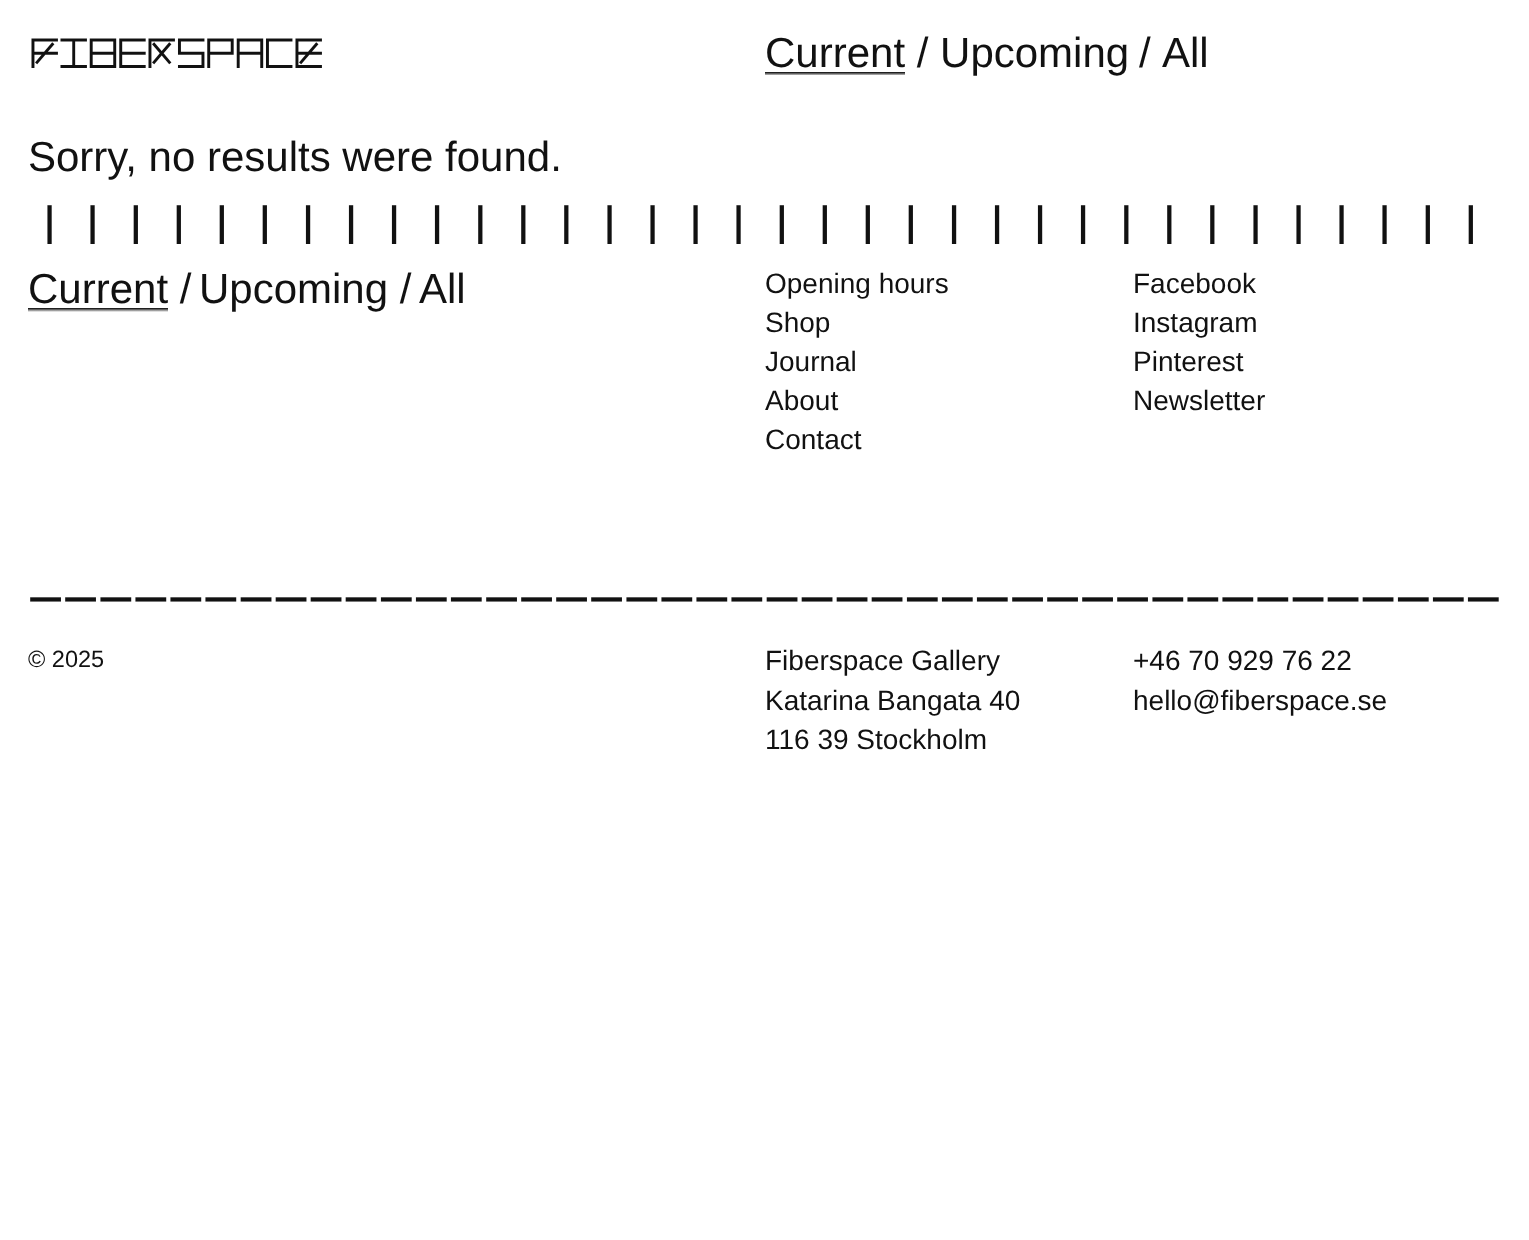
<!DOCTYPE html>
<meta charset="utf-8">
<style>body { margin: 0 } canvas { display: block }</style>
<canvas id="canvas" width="1529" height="1240"></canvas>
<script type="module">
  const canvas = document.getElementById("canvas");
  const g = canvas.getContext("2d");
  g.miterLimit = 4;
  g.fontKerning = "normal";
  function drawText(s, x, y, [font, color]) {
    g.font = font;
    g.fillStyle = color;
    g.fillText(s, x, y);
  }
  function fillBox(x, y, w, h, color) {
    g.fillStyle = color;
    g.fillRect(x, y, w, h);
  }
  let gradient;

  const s1 = ["42px Liberation Sans", "#111111"];
  const s2 = ["800 42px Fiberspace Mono", "#111111"];
  const s3 = ["42px Fiberspace Mono", "#111111"];
  const s4 = ["61.6px Fiberspace Mono", "#111111"];
  const s5 = ["28px Liberation Sans", "#111111"];
  const s6 = ["23.5px Liberation Sans", "#111111"];

  fillBox(0, 0, 1529, 1240, "#FFFFFF");
  gradient = g.createLinearGradient(767, 72, 767, 76);
  gradient.addColorStop(0, "#000000");
  gradient.addColorStop(1, "#FFFFFF");
  g.fillStyle = gradient;
  g.fillRect(765, 72, 140, 3);
  drawText("Current / Upcoming", 765, 67, s1);
  drawText("/", 1139, 67, s1);
  drawText("All", 1162, 67, s1);
  drawText("Sorry, no results were found.", 28, 171, s1);
  drawText("F", 30, 68, s2);
  drawText("IBERSPAC", 59, 68, s3);
  drawText("E", 294, 68, s2);
  drawText("||||||||||||||||||||||||||||||||||", 28, 244, s4);
  drawText("Current /", 28, 303, s1);
  gradient = g.createLinearGradient(30, 308, 30, 312);
  gradient.addColorStop(0, "#000000");
  gradient.addColorStop(1, "#FFFFFF");
  g.fillStyle = gradient;
  g.fillRect(28, 308, 140, 4);
  drawText("Upcoming /", 199, 303, s1);
  drawText("All", 419, 303, s1);
  drawText("Opening hours", 765, 293, s5);
  drawText("Shop", 765, 332, s5);
  drawText("Journal", 765, 371, s5);
  drawText("About", 765, 410, s5);
  drawText("Contact", 765, 449, s5);
  drawText("Facebook", 1133, 293, s5);
  drawText("Instagram", 1133, 332, s5);
  drawText("Pinterest", 1133, 371, s5);
  drawText("Newsletter", 1133, 410, s5);
  drawText("––––––––––––––––––––––––––––––––––––––––––", 28, 621, s4);
  drawText("© 2025", 28, 667, s6);
  drawText("Fiberspace Gallery", 765, 670, s5);
  drawText("Katarina Bangata 40", 765, 710, s5);
  drawText("116 39 Stockholm", 765, 749, s5);
  drawText("+46 70 929 76 22", 1133, 670, s5);
  drawText("hello@fiberspace.se", 1133, 710, s5);
</script>
